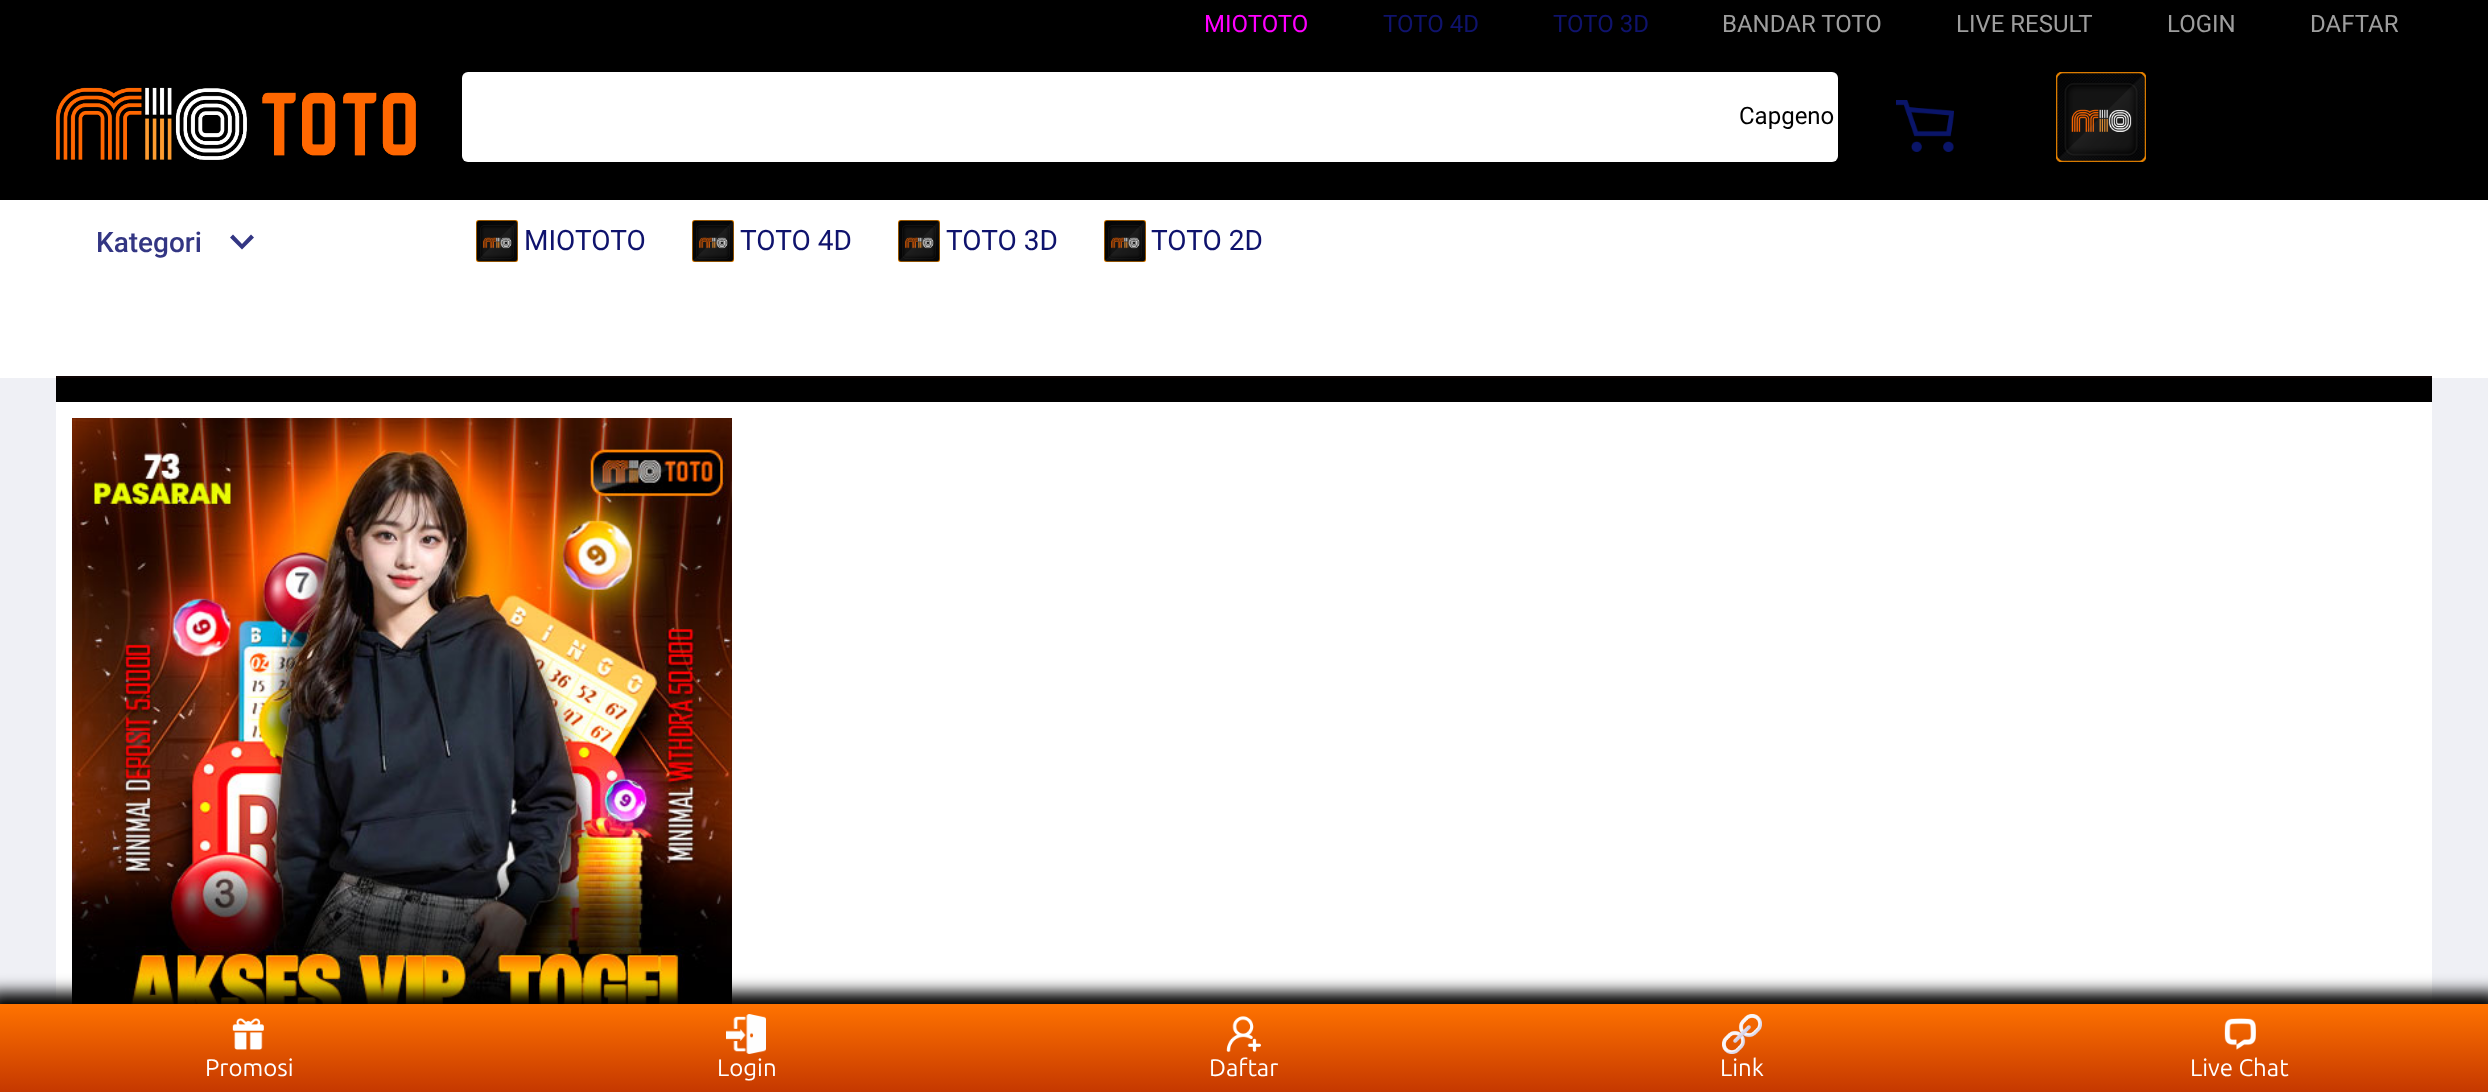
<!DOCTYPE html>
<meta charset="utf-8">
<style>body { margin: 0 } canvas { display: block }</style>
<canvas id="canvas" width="2488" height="1092"></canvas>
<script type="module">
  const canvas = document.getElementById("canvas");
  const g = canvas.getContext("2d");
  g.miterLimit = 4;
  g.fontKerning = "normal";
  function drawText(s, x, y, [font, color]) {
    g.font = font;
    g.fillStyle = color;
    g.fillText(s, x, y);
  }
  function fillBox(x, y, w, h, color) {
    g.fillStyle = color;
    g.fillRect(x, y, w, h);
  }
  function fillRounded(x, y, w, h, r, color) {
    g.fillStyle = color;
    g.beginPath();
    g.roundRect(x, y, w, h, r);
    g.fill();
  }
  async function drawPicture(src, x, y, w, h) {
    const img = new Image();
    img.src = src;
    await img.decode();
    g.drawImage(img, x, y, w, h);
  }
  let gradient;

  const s1 = ["24px Roboto", "#FF00FF"];
  const s2 = ["24px Roboto", "#0F136D"];
  const s3 = ["24px Roboto", "#9E9E9E"];
  const s4 = ["24px Roboto", "#000000"];
  const s5 = ["500 28px Roboto", "#333683"];
  const s6 = ["28px Roboto", "#0F136D"];
  const s7 = ["24px Ubuntu", "#FFFFFF"];

  fillBox(0, 0, 2488, 1092, "#EFF0F5");
  fillBox(0, 0, 2488, 200, "#000000");
  drawText("MIOTOTO", 1204, 32, s1);
  drawText("TOTO 4D", 1383, 32, s2);
  drawText("TOTO 3D", 1553, 32, s2);
  drawText("BANDAR TOTO", 1722, 32, s3);
  drawText("LIVE RESULT", 1956, 32, s3);
  drawText("LOGIN", 2167, 32, s3);
  drawText("DAFTAR", 2310, 32, s3);
  await drawPicture("pic1.png", 56, 87, 360, 73);
  fillRounded(462, 72, 1376, 90, 6, "#FFFFFF");
  drawText("Capgeno", 1739, 124, s4);
  await drawPicture("pic2.png", 1896, 100, 58, 52);
  await drawPicture("pic3.png", 2056, 72, 90, 90);
  fillBox(0, 200, 2488, 178, "#FFFFFF");
  drawText("Kategori", 96, 252, s5);
  g.beginPath();
  g.moveTo(251, 234.5);
  g.lineTo(254, 237.5);
  g.lineTo(242, 249.5);
  g.lineTo(230, 237.5);
  g.lineTo(233, 234.5);
  g.lineTo(242, 244);
  g.closePath();
  g.fill();
  await drawPicture("pic4.png", 476, 220, 42, 42);
  drawText("MIOTOTO", 524, 250, s6);
  await drawPicture("pic5.png", 692, 220, 42, 42);
  drawText("TOTO 4D", 740, 250, s6);
  await drawPicture("pic5.png", 898, 220, 42, 42);
  drawText("TOTO 3D", 946, 250, s6);
  await drawPicture("pic5.png", 1104, 220, 42, 42);
  drawText("TOTO 2D", 1151, 250, s6);
  fillBox(56, 376, 2376, 2, "#0E0404");
  fillBox(56, 378, 2376, 24, "#000000");
  fillBox(56, 402, 2376, 602, "#FFFFFF");
  await drawPicture("pic6.png", 72, 418, 660, 586);
  g.fillStyle = "#000000";
  g.filter = "blur(8px)";
  g.beginPath();
  g.rect(-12, 992, 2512, 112);
  g.fill();
  g.filter = "none";
  gradient = g.createLinearGradient(1244, 1004, 1244, 1092);
  gradient.addColorStop(0, "#FF7300");
  gradient.addColorStop(1, "#C53800");
  g.fillStyle = gradient;
  g.fillRect(0, 1004, 2488, 88);
  await drawPicture("pic7.png", 232, 1018, 32, 32);
  drawText("Promosi", 205, 1076, s7);
  await drawPicture("pic8.png", 726, 1014, 40, 40);
  drawText("Login", 717, 1076, s7);
  await drawPicture("pic9.png", 1226, 1016, 35, 37);
  drawText("Daftar", 1209, 1076, s7);
  await drawPicture("pic10.png", 1722, 1014, 40, 40);
  drawText("Link", 1720, 1076, s7);
  await drawPicture("pic11.png", 2224, 1018, 32, 32);
  drawText("Live Chat", 2190, 1076, s7);
</script>
